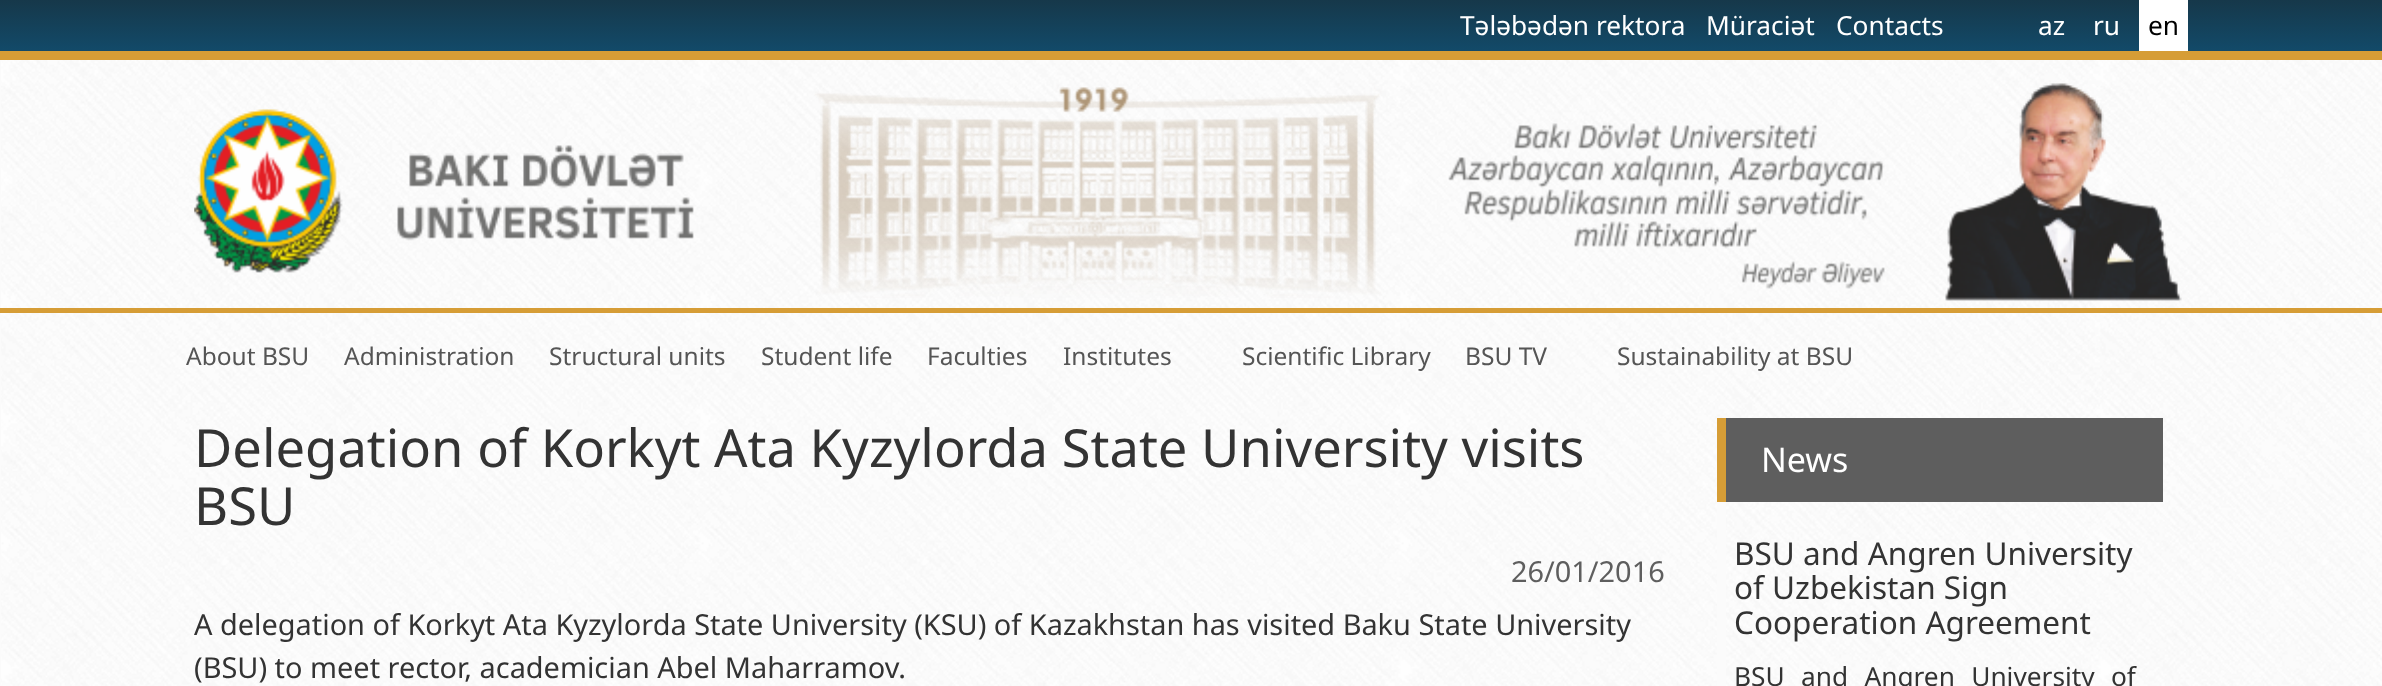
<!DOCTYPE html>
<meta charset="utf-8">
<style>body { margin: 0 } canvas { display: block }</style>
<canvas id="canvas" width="2382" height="686"></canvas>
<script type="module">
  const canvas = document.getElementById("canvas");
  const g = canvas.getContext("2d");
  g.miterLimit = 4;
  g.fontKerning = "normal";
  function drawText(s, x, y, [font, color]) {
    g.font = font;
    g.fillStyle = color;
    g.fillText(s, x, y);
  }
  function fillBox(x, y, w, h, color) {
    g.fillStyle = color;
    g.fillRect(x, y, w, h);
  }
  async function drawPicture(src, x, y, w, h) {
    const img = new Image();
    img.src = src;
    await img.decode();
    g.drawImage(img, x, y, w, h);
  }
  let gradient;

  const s1 = ["26.25px Noto Sans", "#FFFFFF"];
  const s2 = ["26.25px Noto Sans", "#000000"];
  const s3 = ["24.5px Noto Sans", "#555555"];
  const s4 = ["52.5px Noto Sans", "#333333"];
  const s5 = ["28.9px Noto Sans", "#5E5E5E"];
  const s6 = ["28.9px Noto Sans", "#333333"];
  const s7 = ["34px Noto Sans", "#FFFFFF"];
  const s8 = ["31.5px Noto Sans", "#333333"];
  const s9 = ["26.25px Noto Sans", "#333333"];

  fillBox(0, 0, 2382, 686, "#FBFBFB");
  await drawPicture("pic1.png", 1, 60, 2381, 626);
  fillBox(0, 308, 2382, 5, "#D69D36");
  gradient = g.createLinearGradient(1192, 0, 1192, 51);
  gradient.addColorStop(0, "#16384A");
  gradient.addColorStop(1, "#124A69");
  g.fillStyle = gradient;
  g.fillRect(0, 0, 2382, 51);
  fillBox(0, 51, 2382, 9, "#D69D36");
  drawText("Tələbədən rektora", 1460, 35, s1);
  drawText("Müraciət", 1706, 35, s1);
  drawText("Contacts", 1836, 35, s1);
  drawText("az", 2038, 35, s1);
  drawText("ru", 2093, 35, s1);
  fillBox(2141, 0, 45, 49, "#FFFFFF");
  drawText("en", 2148, 35, s2);
  g.strokeStyle = "#FFFFFF";
  g.lineWidth = 2;
  g.strokeRect(2140, -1, 47, 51);
  await drawPicture("pic2.png", 194, 83, 1988, 218);
  drawText("About BSU", 186, 365, s3);
  drawText("Administration", 344, 365, s3);
  drawText("Structural units", 549, 365, s3);
  drawText("Student life", 761, 365, s3);
  drawText("Faculties", 927, 365, s3);
  drawText("Institutes", 1063, 365, s3);
  drawText("Scientific Library", 1242, 365, s3);
  drawText("BSU TV", 1465, 365, s3);
  drawText("Sustainability at BSU", 1617, 365, s3);
  drawText("Delegation of Korkyt Ata Kyzylorda State University visits", 194, 467, s4);
  drawText("BSU", 194, 525, s4);
  drawText("26/01/2016", 1511, 582, s5);
  drawText("A delegation of Korkyt Ata Kyzylorda State University (KSU) of Kazakhstan has visited Baku State University", 194, 635, s6);
  drawText("(BSU) to meet rector, academician Abel Maharramov.", 194, 678, s6);
  fillBox(1726, 418, 437, 84, "#5E5E5E");
  fillBox(1717, 418, 9, 84, "#D69D36");
  drawText("News", 1761, 472, s7);
  g.fillStyle = "#FBFBFB";
  g.beginPath();
  g.moveTo(1717, 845);
  g.lineTo(1717, 502);
  g.lineTo(1726, 502);
  g.lineTo(1726, 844);
  g.closePath();
  g.fill();
  drawText("BSU and Angren University", 1734, 565, s8);
  drawText("of Uzbekistan Sign", 1734, 599, s8);
  drawText("Cooperation Agreement", 1734, 634, s8);
  g.wordSpacing = "9.5px";
  drawText("BSU and Angren University of", 1734, 686, s9);
</script>
